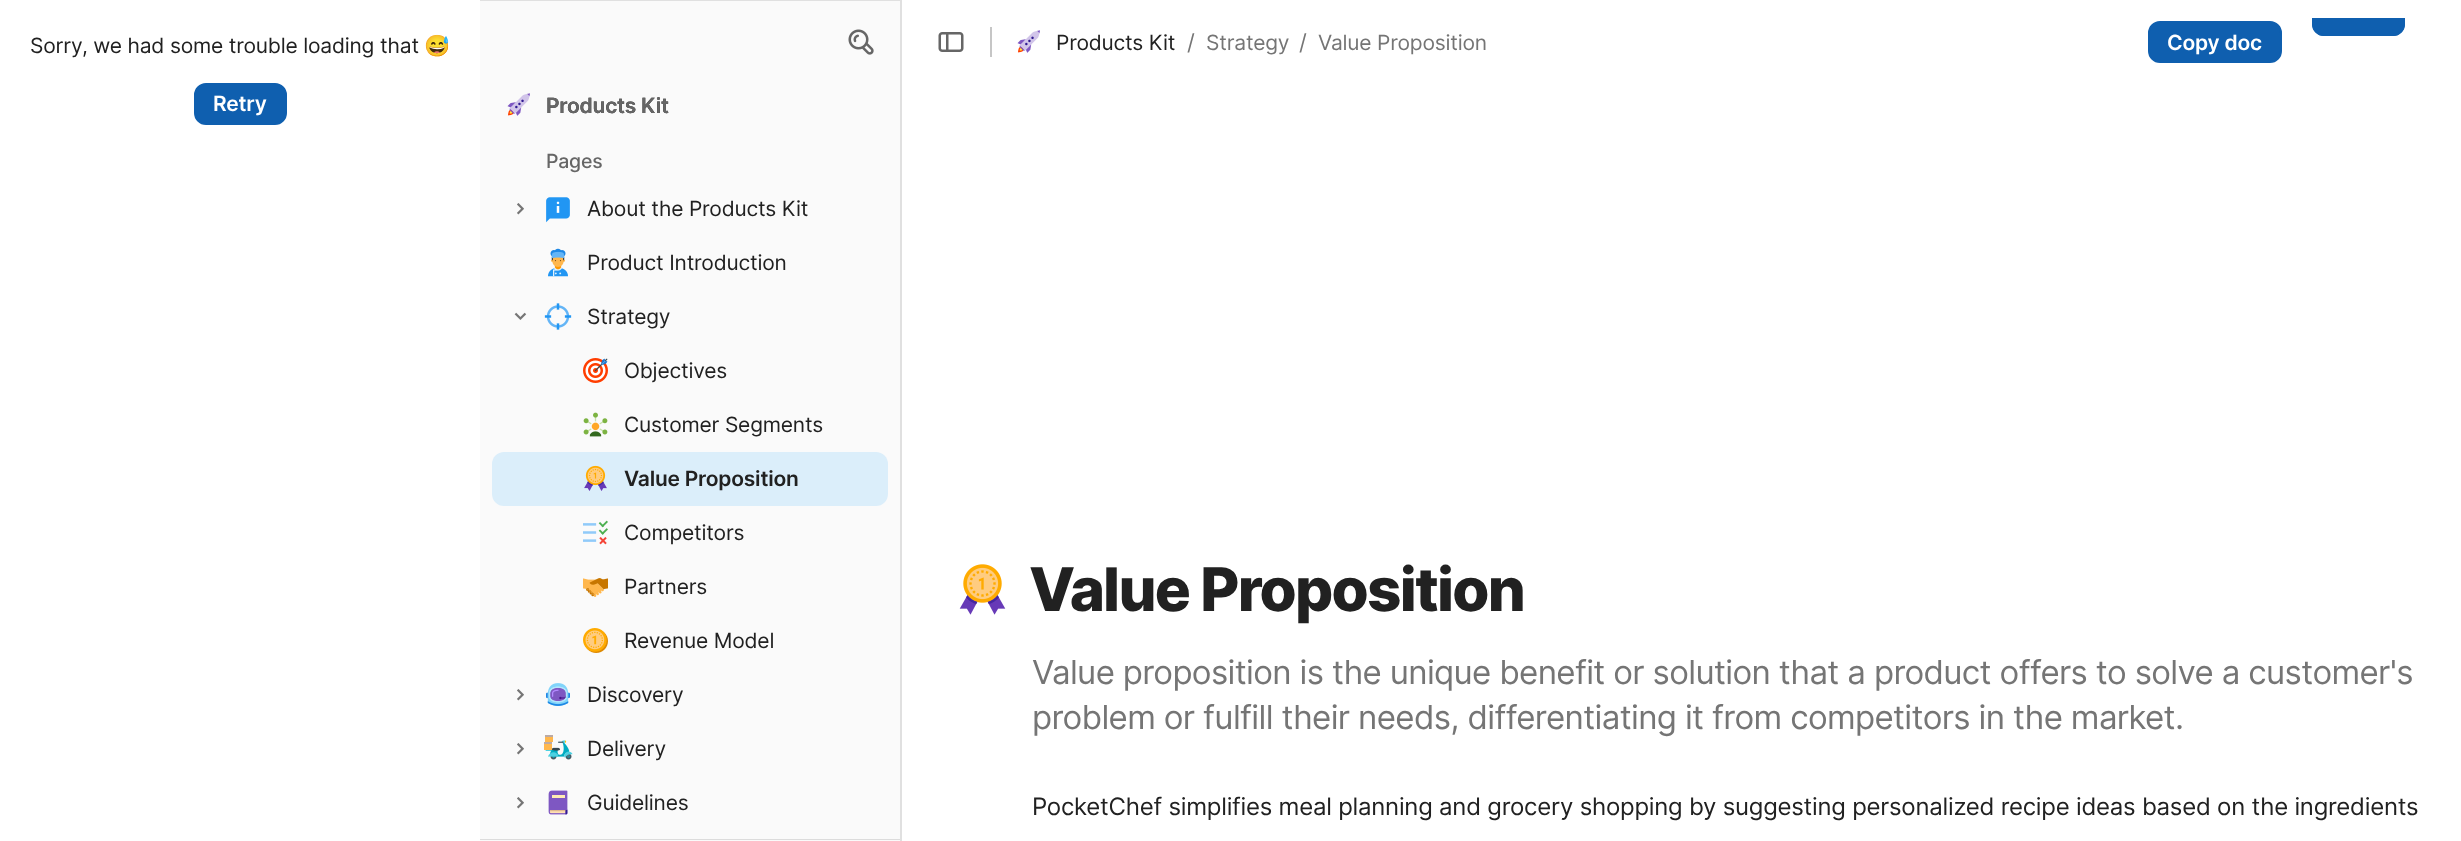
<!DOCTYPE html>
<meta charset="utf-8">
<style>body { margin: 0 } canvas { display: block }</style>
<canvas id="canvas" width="2461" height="841"></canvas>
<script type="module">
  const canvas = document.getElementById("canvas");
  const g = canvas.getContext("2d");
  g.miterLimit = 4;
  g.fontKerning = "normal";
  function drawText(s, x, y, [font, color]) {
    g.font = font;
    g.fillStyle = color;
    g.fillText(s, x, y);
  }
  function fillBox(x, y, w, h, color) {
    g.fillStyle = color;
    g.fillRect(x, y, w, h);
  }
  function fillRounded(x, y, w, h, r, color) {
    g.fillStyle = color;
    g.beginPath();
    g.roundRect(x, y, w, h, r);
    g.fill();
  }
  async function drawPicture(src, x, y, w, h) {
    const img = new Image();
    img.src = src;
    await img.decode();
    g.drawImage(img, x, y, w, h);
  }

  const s1 = ["21px Inter", "#212121"];
  const s2 = ["21px Noto Color Emoji", "#212121"];
  const s3 = ["600 21px Inter", "#FFFFFF"];
  const s4 = ["600 21px Inter", "#212121"];
  const s5 = ["600 21px Inter", "#666666"];
  const s6 = ["500 19.5px Inter", "#666666"];
  const s7 = ["22px Inter", "#757575"];
  const s8 = ["21px Inter", "#757575"];
  const s9 = ["800 60px Inter", "#212121"];
  const s10 = ["33px Inter", "#757575"];
  const s11 = ["24px Inter", "#212121"];

  fillBox(0, 0, 2461, 841, "#FFFFFF");
  g.letterSpacing = "-0.2px";
  drawText("Sorry, we had some trouble loading that", 30, 53, s1);
  drawText("😅", 424, 53, s2);
  g.fillStyle = "#0F5FAF";
  g.beginPath();
  g.roundRect(195, 84, 91, 40, 11);
  g.fill();
  g.strokeStyle = "#0F5FAF";
  g.lineWidth = 2;
  g.stroke();
  drawText("Retry", 213, 111, s3);
  fillBox(480, 1, 420, 840, "#FAFAFA");
  fillBox(480, 0, 422, 1, "#E0E0E0");
  fillBox(900, 0, 2, 841, "#E0E0E0");
  await drawPicture("pic1.png", 848, 29, 26, 26);
  await drawPicture("pic2.png", 507, 93, 23, 23);
  drawText("Products Kit", 546, 113, s4);
  drawText("Products Kit", 546, 113, s5);
  drawText("Pages", 546, 168, s6);
  await drawPicture("pic3.png", 517, 203, 7, 12);
  await drawPicture("pic4.png", 546, 197, 24, 26);
  drawText("About the Products Kit", 587, 216, s1);
  await drawPicture("pic5.png", 548, 248, 20, 29);
  drawText("Product Introduction", 587, 270, s1);
  await drawPicture("pic6.png", 514, 312, 13, 8);
  await drawPicture("pic7.png", 544, 303, 28, 27);
  drawText("Strategy", 587, 324, s1);
  await drawPicture("pic8.png", 583, 358, 25, 25);
  drawText("Objectives", 624, 378, s1);
  await drawPicture("pic9.png", 583, 412, 25, 25);
  drawText("Customer Segments", 624, 432, s1);
  fillRounded(492, 452, 396, 54, 12, "#DBEEFA");
  await drawPicture("pic10.png", 584, 465, 23, 26);
  drawText("Value Proposition", 624, 486, s4);
  await drawPicture("pic11.png", 583, 520, 25, 25);
  drawText("Competitors", 624, 540, s1);
  await drawPicture("pic12.png", 583, 578, 25, 19);
  drawText("Partners", 624, 594, s1);
  await drawPicture("pic13.png", 583, 628, 25, 25);
  drawText("Revenue Model", 624, 648, s1);
  await drawPicture("pic3.png", 517, 689, 7, 12);
  await drawPicture("pic14.png", 546, 683, 24, 23);
  drawText("Discovery", 587, 702, s1);
  await drawPicture("pic3.png", 517, 743, 7, 12);
  await drawPicture("pic15.png", 544, 735, 29, 25);
  drawText("Delivery", 587, 756, s1);
  await drawPicture("pic3.png", 517, 797, 7, 12);
  await drawPicture("pic16.png", 548, 790, 20, 25);
  drawText("Guidelines", 587, 810, s1);
  fillBox(480, 839, 420, 1, "#DCDCDC");
  await drawPicture("pic17.png", 938, 32, 26, 20);
  fillBox(990, 27, 2, 30, "#C6C6C6");
  await drawPicture("pic18.png", 1017, 30, 23, 23);
  drawText("Products Kit", 1056, 50, s1);
  drawText("/", 1187, 50, s7);
  drawText("Strategy", 1206, 50, s8);
  drawText("/", 1299, 50, s7);
  drawText("Value Proposition", 1318, 50, s8);
  g.fillStyle = "#0F5FAF";
  g.beginPath();
  g.roundRect(2312, 18, 93, 18, [0, 0, 12, 12]);
  g.fill();
  g.save();
  g.beginPath();
  g.rect(2118, 18, 317, 48);
  g.clip();
  g.beginPath();
  g.roundRect(2313, -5, 91, 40, 11);
  g.stroke();
  g.restore();
  g.beginPath();
  g.roundRect(2149, 22, 132, 40, 11);
  g.fill();
  g.stroke();
  drawText("Copy doc", 2167, 50, s3);
  await drawPicture("pic19.png", 959, 564, 47, 51);
  g.letterSpacing = "-1.75px";
  drawText("Value Proposition", 1029, 611, s9);
  g.letterSpacing = "-0.65px";
  drawText("Value proposition is the unique benefit or solution that a product offers to solve a customer's", 1032, 684, s10);
  drawText("problem or fulfill their needs, differentiating it from competitors in the market.", 1032, 729, s10);
  g.letterSpacing = "-0.24px";
  drawText("PocketChef simplifies meal planning and grocery shopping by suggesting personalized recipe ideas based on the ingredients", 1032, 815, s11);
</script>
